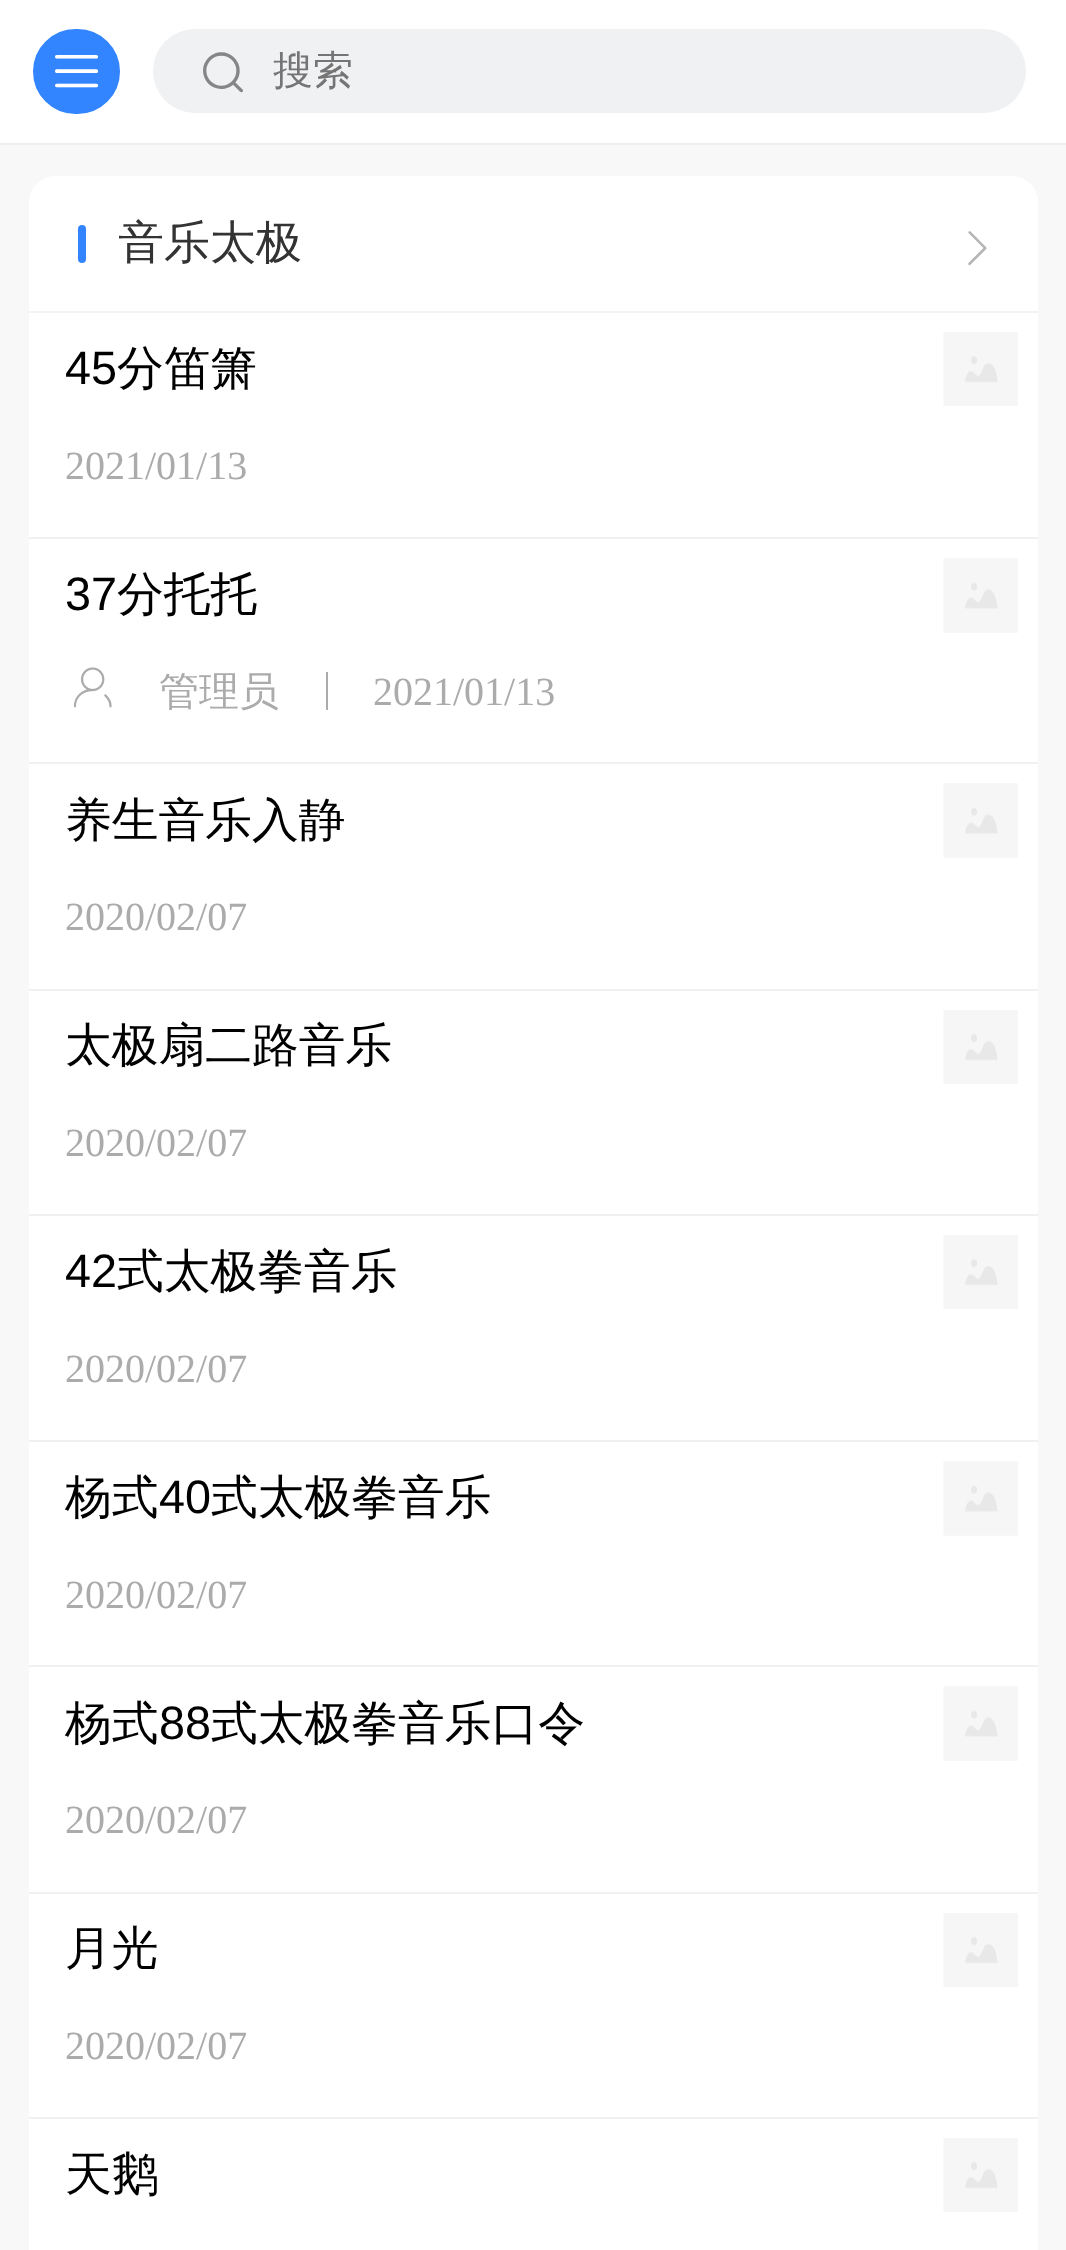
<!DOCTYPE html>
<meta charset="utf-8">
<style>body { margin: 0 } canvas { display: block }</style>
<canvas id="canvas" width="1066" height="2250"></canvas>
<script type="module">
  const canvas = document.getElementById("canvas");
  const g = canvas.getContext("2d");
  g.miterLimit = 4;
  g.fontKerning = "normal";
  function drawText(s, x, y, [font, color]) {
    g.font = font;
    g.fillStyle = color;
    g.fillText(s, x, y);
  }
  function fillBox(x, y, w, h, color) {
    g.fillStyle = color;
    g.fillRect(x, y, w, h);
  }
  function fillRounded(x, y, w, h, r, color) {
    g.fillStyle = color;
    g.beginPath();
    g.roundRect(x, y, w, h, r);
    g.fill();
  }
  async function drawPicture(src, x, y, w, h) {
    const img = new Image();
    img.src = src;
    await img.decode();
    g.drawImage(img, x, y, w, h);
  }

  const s1 = ["43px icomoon", "#FFFFFF"];
  const s2 = ["40px icomoon", "#868686"];
  const s3 = ["500 40px WenQuanYi Zen Hei", "#757575"];
  const s4 = ["500 46px WenQuanYi Zen Hei", "#333333"];
  const s5 = ["34px icomoon", "#B5B5B5"];
  const s6 = ["46.75px Liberation Sans", "#000000"];
  const s7 = ["500 46.75px WenQuanYi Zen Hei", "#000000"];
  const s8 = ["40px Liberation Serif", "#ABABAB"];
  const s9 = ["500 40px WenQuanYi Zen Hei", "#ABABAB"];

  fillBox(0, 0, 1066, 2250, "#F8F8F8");
  fillBox(0, 0, 1066, 143, "#FFFFFF");
  g.fillStyle = "#3285FF";
  g.beginPath();
  g.roundRect(34, 30, 85, 83, 41.5);
  g.fill();
  g.strokeStyle = "#3285FF";
  g.lineWidth = 2;
  g.stroke();
  drawText("򰌶", 55, 89, s1);
  fillBox(0, 143, 1066, 2, "#EEEEEE");
  fillRounded(153, 29, 873, 84, 42, "#F0F1F3");
  drawText("򰊐", 203, 89, s2);
  drawText("搜索", 273, 84, s3);
  g.fillStyle = "#FFFFFF";
  g.beginPath();
  g.roundRect(29, 176, 1009, 136, [26, 26, 0, 0]);
  g.fill();
  fillBox(29, 311, 1009, 2, "#F3F3F3");
  fillRounded(78, 225, 8, 38, 4, "#3285FF");
  g.save();
  g.beginPath();
  g.rect(119, 212, 208, 63);
  g.clip();
  drawText("音乐太极", 118, 258, s4);
  g.restore();
  drawText("򠈕", 960, 263, s5);
  fillBox(29, 313, 1009, 1937, "#FFFFFF");
  drawText("45", 65, 384, s6);
  drawText("分笛箫", 117, 384, s7);
  await drawPicture("pic1.png", 943, 332, 75, 74);
  drawText("2021/01/13", 65, 479, s8);
  fillBox(29, 537, 1009, 2, "#F0F0F0");
  drawText("37", 65, 610, s6);
  drawText("分托托", 117, 610, s7);
  await drawPicture("pic2.png", 943, 558, 75, 75);
  await drawPicture("pic3.png", 73, 667, 39, 41);
  drawText("管理员", 159, 705, s9);
  fillBox(326, 672, 2, 38, "#ABABAB");
  drawText("2021/01/13", 373, 705, s8);
  fillBox(29, 762, 1009, 2, "#F0F0F0");
  drawText("养生音乐入静", 65, 836, s7);
  await drawPicture("pic2.png", 943, 783, 75, 75);
  drawText("2020/02/07", 65, 930, s8);
  fillBox(29, 989, 1009, 2, "#F0F0F0");
  drawText("太极扇二路音乐", 65, 1061, s7);
  await drawPicture("pic1.png", 943, 1010, 75, 74);
  drawText("2020/02/07", 65, 1156, s8);
  fillBox(29, 1214, 1009, 2, "#F0F0F0");
  drawText("42", 65, 1287, s6);
  drawText("式太极拳音乐", 117, 1287, s7);
  await drawPicture("pic1.png", 943, 1235, 75, 74);
  drawText("2020/02/07", 65, 1382, s8);
  fillBox(29, 1440, 1009, 2, "#F0F0F0");
  drawText("杨式", 65, 1513, s7);
  drawText("40", 159, 1513, s6);
  drawText("式太极拳音乐", 211, 1513, s7);
  await drawPicture("pic2.png", 943, 1461, 75, 75);
  drawText("2020/02/07", 65, 1608, s8);
  fillBox(29, 1665, 1009, 2, "#F0F0F0");
  drawText("杨式", 65, 1739, s7);
  drawText("88", 159, 1739, s6);
  drawText("式太极拳音乐口令", 211, 1739, s7);
  await drawPicture("pic2.png", 943, 1686, 75, 75);
  drawText("2020/02/07", 65, 1833, s8);
  fillBox(29, 1892, 1009, 2, "#F0F0F0");
  drawText("月光", 65, 1964, s7);
  await drawPicture("pic1.png", 943, 1913, 75, 74);
  drawText("2020/02/07", 65, 2059, s8);
  fillBox(29, 2117, 1009, 2, "#F0F0F0");
  drawText("天鹅", 65, 2190, s7);
  await drawPicture("pic1.png", 943, 2138, 75, 74);
</script>
